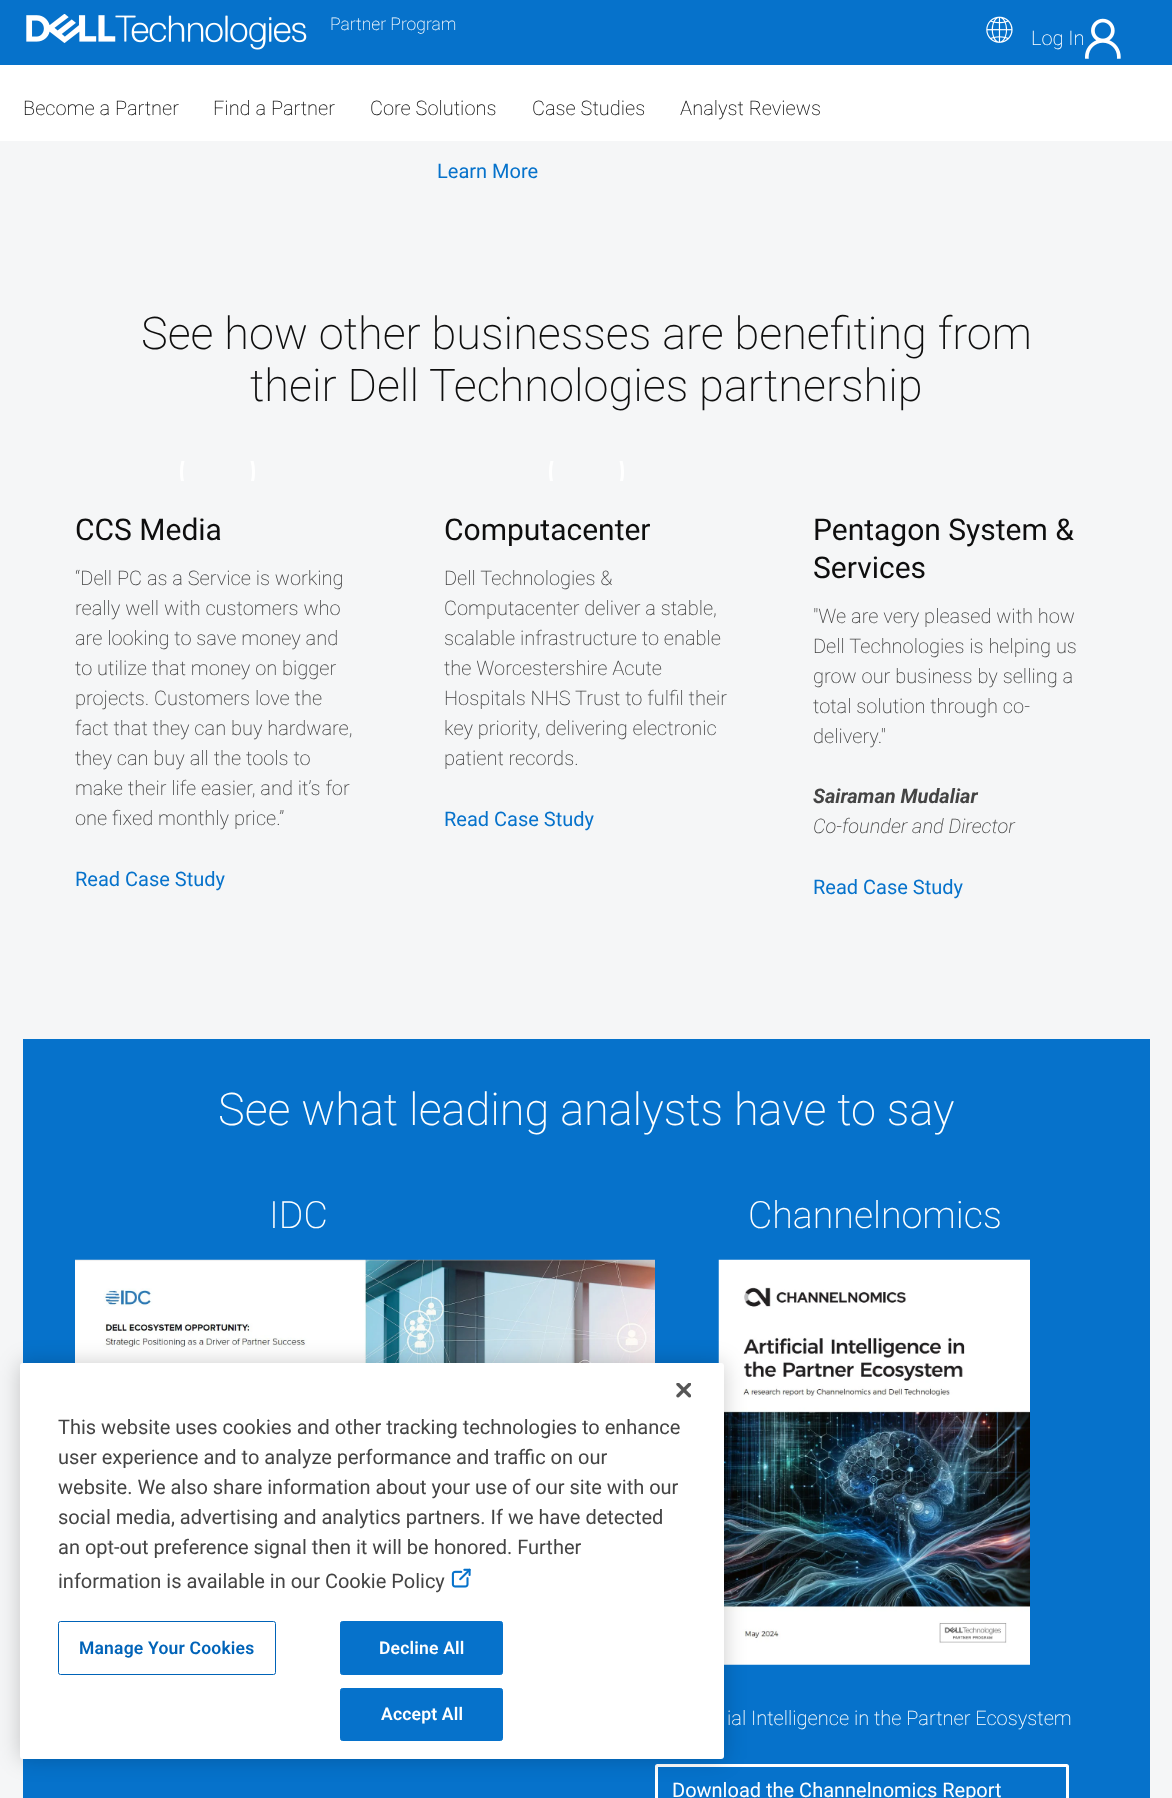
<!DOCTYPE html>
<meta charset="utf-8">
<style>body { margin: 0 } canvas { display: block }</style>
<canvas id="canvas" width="1172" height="1798"></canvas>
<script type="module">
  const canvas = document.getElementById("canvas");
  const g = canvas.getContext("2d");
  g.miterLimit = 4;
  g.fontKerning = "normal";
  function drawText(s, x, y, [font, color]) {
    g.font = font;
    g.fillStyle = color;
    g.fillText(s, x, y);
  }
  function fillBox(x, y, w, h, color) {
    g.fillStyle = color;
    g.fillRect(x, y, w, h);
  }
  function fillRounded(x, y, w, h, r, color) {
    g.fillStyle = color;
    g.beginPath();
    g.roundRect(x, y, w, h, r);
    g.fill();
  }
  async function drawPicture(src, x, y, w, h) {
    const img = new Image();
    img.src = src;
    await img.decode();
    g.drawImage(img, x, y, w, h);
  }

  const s1 = ["200 17.5px Roboto", "#FFFFFF"];
  const s2 = ["200 20px Roboto", "#FFFFFF"];
  const s3 = ["200 20px Roboto", "#0E0E0E"];
  const s4 = ["20px Roboto", "#0672CB"];
  const s5 = ["200 45px Roboto", "#0E0E0E"];
  const s6 = ["30px Roboto", "#0E0E0E"];
  const s7 = ["200 20px Roboto", "#444444"];
  const s8 = ["italic bold 20px Roboto", "#444444"];
  const s9 = ["italic 200 20px Roboto", "#444444"];
  const s10 = ["200 45px Roboto", "#FFFFFF"];
  const s11 = ["200 37.5px Roboto", "#FFFFFF"];
  const s12 = ["20px Roboto", "#FFFFFF"];
  const s13 = ["20px Roboto", "#444444"];
  const s14 = ["600 17.5px Roboto", "#0063B8"];
  const s15 = ["600 17.5px Roboto", "#FFFFFF"];

  fillBox(0, 0, 1172, 1798, "#F5F6F7");
  fillBox(0, 0, 1172, 65, "#0672CB");
  await drawPicture("pic1.png", 26, 14, 281, 36);
  drawText("Partner Program", 330, 30, s1);
  await drawPicture("pic2.png", 986, 16, 27, 27);
  drawText("Log In", 1031, 45, s2);
  await drawPicture("pic3.png", 1085, 18, 36, 41);
  fillBox(0, 65, 1172, 76, "#FFFFFF");
  drawText("Become a Partner", 23, 115, s3);
  drawText("Find a Partner", 213, 115, s3);
  drawText("Core Solutions", 370, 115, s3);
  drawText("Case Studies", 532, 115, s3);
  drawText("Analyst Reviews", 680, 115, s3);
  drawText("Learn More", 437, 178, s4);
  drawText("See how other businesses are benefiting from", 141, 349, s5);
  drawText("their Dell Technologies partnership", 250, 401, s5);
  g.save();
  g.beginPath();
  g.rect(45, 461, 344, 20);
  g.clip();
  g.beginPath();
  g.roundRect(181.5, 435.5, 72, 73, 36);
  g.strokeStyle = "#FFFFFF";
  g.lineWidth = 3;
  g.stroke();
  g.restore();
  drawText("CCS Media", 75, 540, s6);
  drawText("“Dell PC as a Service is working", 75, 585, s7);
  drawText("really well with customers who", 75, 615, s7);
  drawText("are looking to save money and", 75, 645, s7);
  drawText("to utilize that money on bigger", 75, 675, s7);
  drawText("projects. Customers love the", 75, 705, s7);
  drawText("fact that they can buy hardware,", 75, 735, s7);
  drawText("they can buy all the tools to", 75, 765, s7);
  drawText("make their life easier, and it’s for", 75, 795, s7);
  drawText("one fixed monthly price.”", 75, 825, s7);
  drawText("Read Case Study", 75, 886, s4);
  g.save();
  g.beginPath();
  g.rect(414, 461, 345, 20);
  g.clip();
  g.beginPath();
  g.roundRect(550.5, 435.5, 72, 73, 36);
  g.strokeStyle = "#FFFFFF";
  g.lineWidth = 3;
  g.stroke();
  g.restore();
  drawText("Computacenter", 444, 540, s6);
  drawText("Dell Technologies &", 444, 585, s7);
  drawText("Computacenter deliver a stable,", 444, 615, s7);
  drawText("scalable infrastructure to enable", 444, 645, s7);
  drawText("the Worcestershire Acute", 444, 675, s7);
  drawText("Hospitals NHS Trust to fulfil their", 444, 705, s7);
  drawText("key priority, delivering electronic", 444, 735, s7);
  drawText("patient records.", 444, 765, s7);
  drawText("Read Case Study", 444, 826, s4);
  drawText("Pentagon System &", 813, 540, s6);
  drawText("Services", 813, 578, s6);
  drawText("\"We are very pleased with how", 813, 623, s7);
  drawText("Dell Technologies is helping us", 813, 653, s7);
  drawText("grow our business by selling a", 813, 683, s7);
  drawText("total solution through co-", 813, 713, s7);
  drawText("delivery.\"", 813, 743, s7);
  drawText("Sairaman Mudaliar", 813, 803, s8);
  drawText("Co-founder and Director", 813, 833, s9);
  drawText("Read Case Study", 813, 894, s4);
  fillBox(23, 1039, 1127, 759, "#0672CB");
  drawText("See what leading analysts have to say", 218, 1125, s10);
  drawText("IDC", 269, 1228, s11);
  await drawPicture("pic4.png", 75, 1259, 580, 104);
  drawText("Channelnomics", 748, 1228, s11);
  await drawPicture("pic5.png", 718, 1259, 312, 406);
  drawText("ial Intelligence in the Partner Ecosystem", 727, 1725, s2);
  g.beginPath();
  g.roundRect(656.5, 1765.5, 411, 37, 1);
  g.strokeStyle = "#FFFFFF";
  g.lineWidth = 3;
  g.stroke();
  drawText("Download the Channelnomics Report", 672, 1797, s12);
  g.fillStyle = "rgba(0, 0, 0, 0.2)";
  g.filter = "blur(11px)";
  g.beginPath();
  g.roundRect(20, 1363, 704, 396, 3);
  g.fill();
  g.filter = "none";
  fillRounded(20, 1363, 704, 396, 3, "#FFFFFF");
  await drawPicture("pic6.png", 676, 1383, 15, 15);
  drawText("This website uses cookies and other tracking technologies to enhance", 58, 1434, s13);
  drawText("user experience and to analyze performance and traffic on our", 58, 1464, s13);
  drawText("website. We also share information about your use of our site with our", 58, 1494, s13);
  drawText("social media, advertising and analytics partners. If we have detected", 58, 1524, s13);
  drawText("an opt-out preference signal then it will be honored. Further", 58, 1554, s13);
  drawText("information is available in our Cookie Policy", 58, 1588, s13);
  await drawPicture("pic7.png", 451, 1568, 20, 20);
  g.beginPath();
  g.roundRect(58.5, 1621.5, 217, 53, 2);
  g.strokeStyle = "#0063B8";
  g.lineWidth = 1;
  g.stroke();
  g.letterSpacing = "0.2px";
  drawText("Manage Your Cookies", 79, 1654, s14);
  g.fillStyle = "#0672CB";
  g.beginPath();
  g.roundRect(340.5, 1621.5, 162, 53, 2);
  g.fill();
  g.strokeStyle = "#0672CB";
  g.stroke();
  drawText("Decline All", 379, 1654, s15);
  g.fillStyle = "#0672CB";
  g.beginPath();
  g.roundRect(340.5, 1688.5, 162, 52, 2);
  g.fill();
  g.stroke();
  drawText("Accept All", 381, 1720, s15);
</script>
